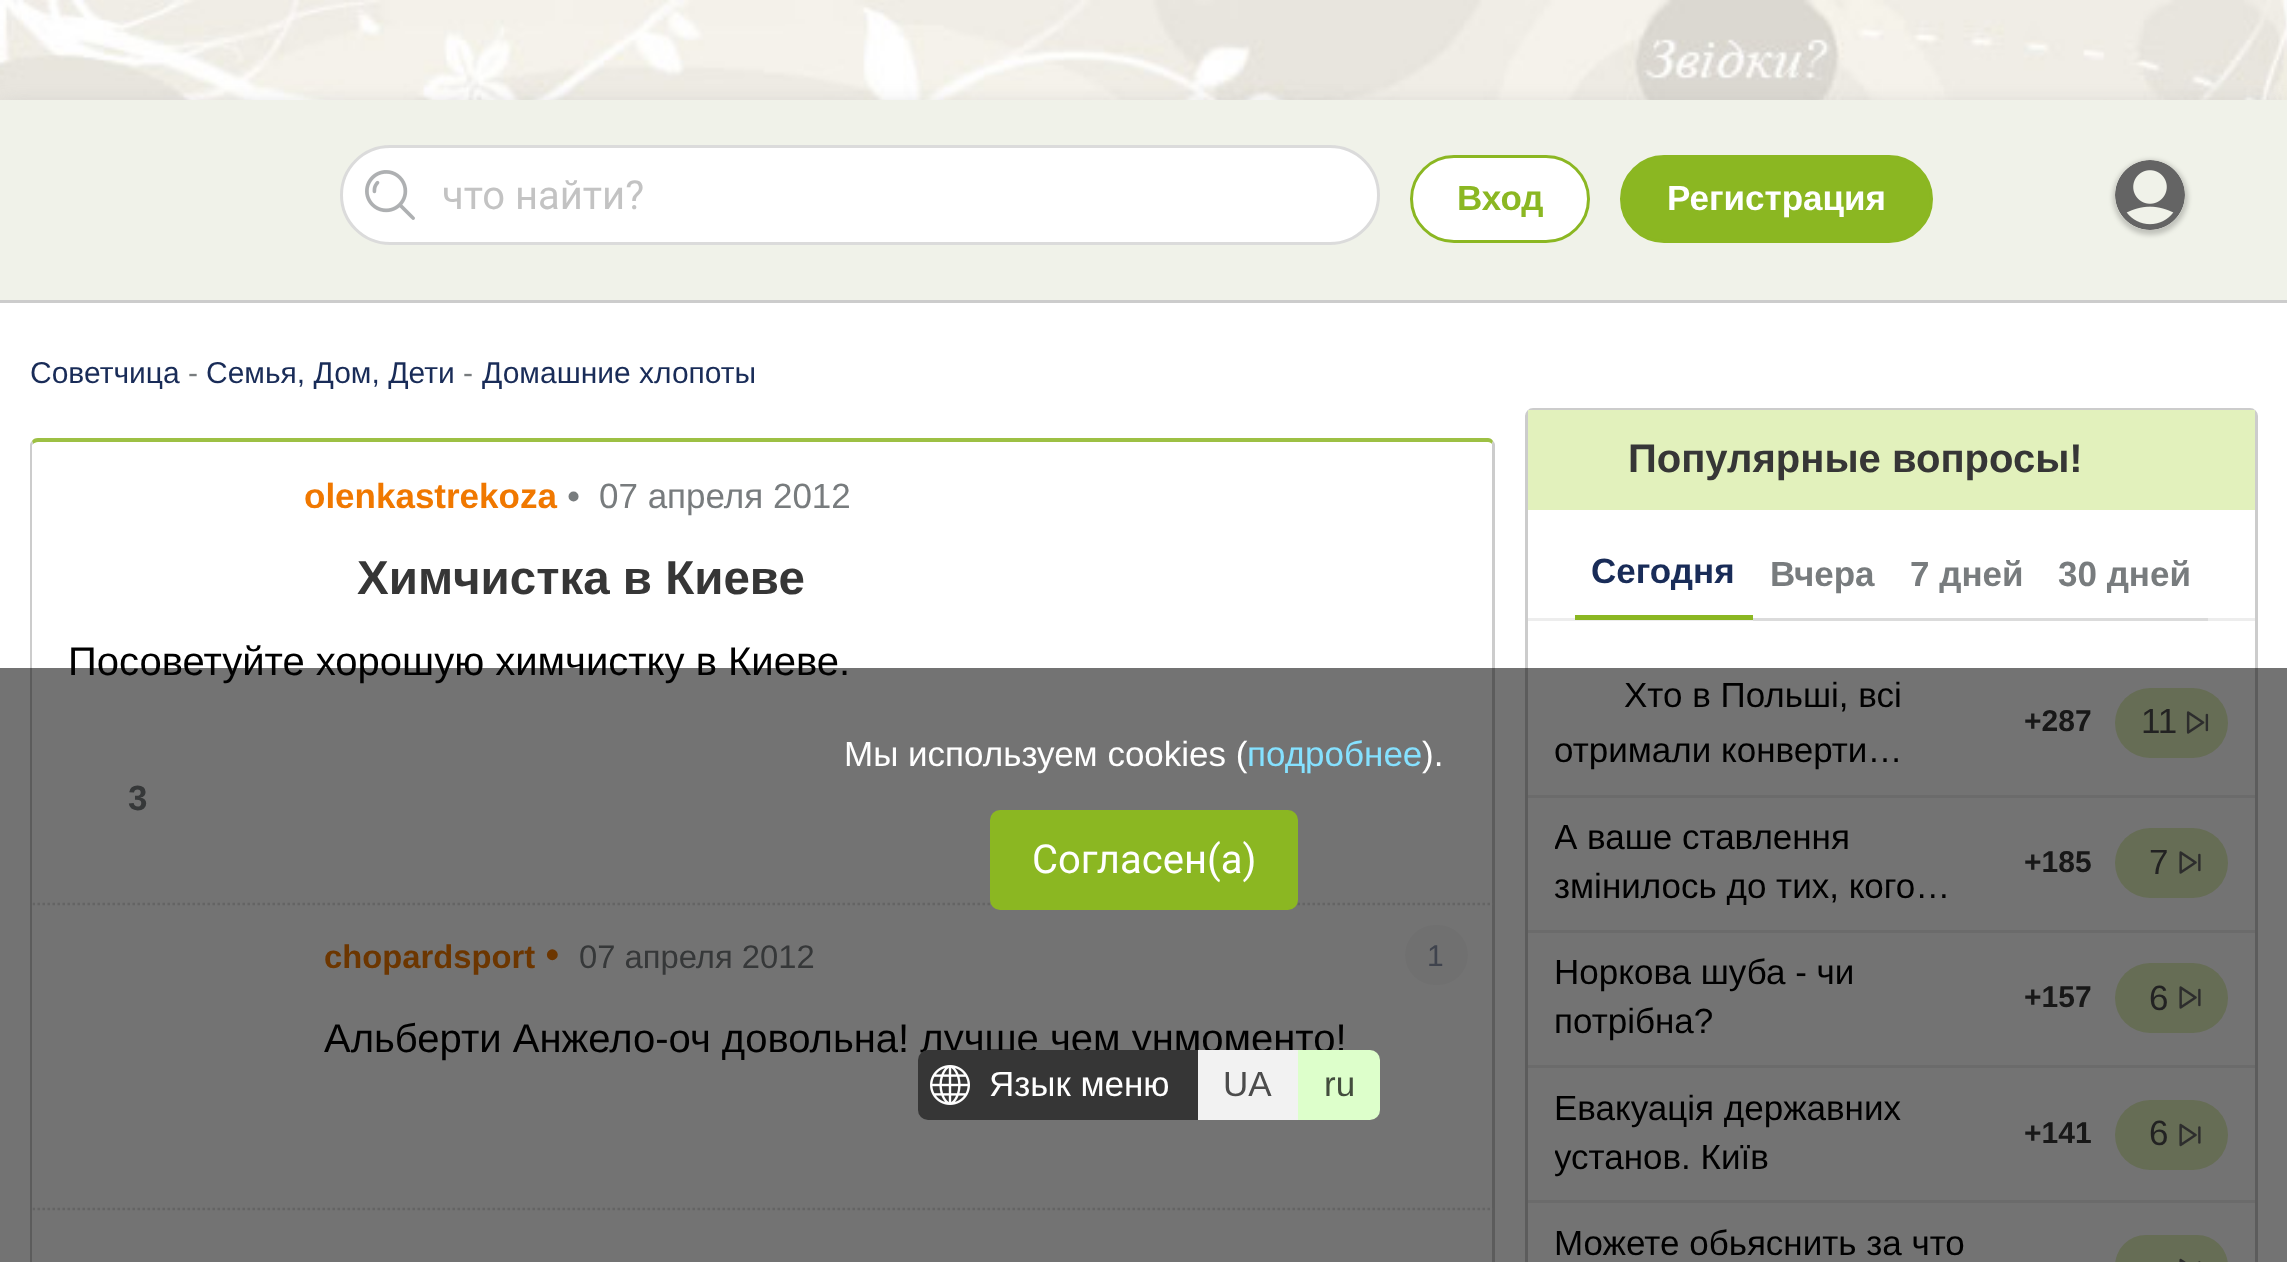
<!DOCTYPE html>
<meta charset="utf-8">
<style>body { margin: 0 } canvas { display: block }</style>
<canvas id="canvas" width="2287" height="1262"></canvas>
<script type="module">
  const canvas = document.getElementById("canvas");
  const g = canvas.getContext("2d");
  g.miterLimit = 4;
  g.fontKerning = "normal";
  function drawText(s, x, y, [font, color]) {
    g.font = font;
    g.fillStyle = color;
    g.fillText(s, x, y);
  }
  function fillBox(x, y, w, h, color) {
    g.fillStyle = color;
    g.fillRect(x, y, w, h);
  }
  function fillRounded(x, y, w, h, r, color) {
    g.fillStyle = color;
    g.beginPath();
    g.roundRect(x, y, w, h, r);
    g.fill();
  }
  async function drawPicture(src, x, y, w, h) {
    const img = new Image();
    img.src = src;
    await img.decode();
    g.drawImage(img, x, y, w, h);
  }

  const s1 = ["40px Roboto", "#C3C3C3"];
  const s2 = ["bold 35px Liberation Sans", "#8BB722"];
  const s3 = ["bold 35px Liberation Sans", "#FFFFFF"];
  const s4 = ["30px Liberation Sans", "#192C58"];
  const s5 = ["30px Liberation Sans", "#787C7E"];
  const s6 = ["bold 35px Liberation Sans", "#F07800"];
  const s7 = ["italic bold 35px Liberation Sans", "#787C7E"];
  const s8 = ["35px Liberation Sans", "#787C7E"];
  const s9 = ["bold 47.5px Liberation Sans", "#363636"];
  const s10 = ["40px Liberation Sans", "#000000"];
  const s11 = ["bold 35px Liberation Sans", "#787C7E"];
  const s12 = ["bold 32.75px Liberation Sans", "#F07800"];
  const s13 = ["italic 40px Liberation Sans", "#F07800"];
  const s14 = ["32.75px Liberation Sans", "#787C7E"];
  const s15 = ["30px Liberation Sans", "#8C96AC"];
  const s16 = ["bold 40px Liberation Sans", "#363636"];
  const s17 = ["bold 35px Liberation Sans", "#192C58"];
  const s18 = ["35px Liberation Sans", "#000000"];
  const s19 = ["bold 30px Liberation Sans", "#363636"];
  const s20 = ["35px Liberation Sans", "#4C4C4C"];
  const s21 = ["35px Liberation Sans", "#FFFFFF"];
  const s22 = ["35px Liberation Sans", "#85E1FF"];
  const s23 = ["40px Roboto", "#FFFFFF"];
  const s24 = ["35px Liberation Sans", "#424D3D"];

  fillBox(0, 0, 2287, 1262, "#FFFFFF");
  await drawPicture("pic1.png", 0, 0, 2287, 100);
  g.fillStyle = "#ACACAC";
  g.filter = "blur(12.5px)";
  g.beginPath();
  g.roundRect(0, 113, 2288, 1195, 8);
  g.fill();
  g.filter = "none";
  fillBox(0, 303, 2287, 959, "#FFFFFF");
  fillBox(0, 100, 2287, 200, "#F0F2E9");
  fillBox(0, 300, 2287, 3, "#CCCCCC");
  g.fillStyle = "#FFFFFF";
  g.beginPath();
  g.roundRect(341.5, 146.5, 1037, 97, 48.5);
  g.fill();
  g.strokeStyle = "#DBDBDB";
  g.lineWidth = 3;
  g.stroke();
  await drawPicture("pic2.png", 365, 170, 50, 50);
  drawText("что найти?", 442, 209, s1);
  g.fillStyle = "#FFFFFF";
  g.beginPath();
  g.roundRect(1411.5, 156.5, 177, 85, 42.5);
  g.fill();
  g.strokeStyle = "#8BB722";
  g.stroke();
  drawText("Вход", 1457, 210, s2);
  g.beginPath();
  g.roundRect(1621.5, 156.5, 310, 85, 42.5);
  g.fill();
  g.stroke();
  drawText("Регистрация", 1667, 210, s3);
  g.save();
  g.beginPath();
  g.moveTo(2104, 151);
  g.lineTo(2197, 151);
  g.lineTo(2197, 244);
  g.lineTo(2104, 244);
  g.closePath();
  g.moveTo(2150, 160);
  g.bezierCurveTo(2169.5, 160, 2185, 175.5, 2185, 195);
  g.bezierCurveTo(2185, 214.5, 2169.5, 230, 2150, 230);
  g.bezierCurveTo(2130.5, 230, 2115, 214.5, 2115, 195);
  g.bezierCurveTo(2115, 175.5, 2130.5, 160, 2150, 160);
  g.closePath();
  g.clip("evenodd");
  g.fillStyle = "rgba(0, 0, 0, 0.2)";
  g.filter = "blur(2.5px)";
  g.beginPath();
  g.roundRect(2113, 160, 75, 75, 37.5);
  g.fill();
  g.filter = "none";
  g.restore();
  await drawPicture("pic3.png", 2115, 160, 70, 70);
  drawText("Советчица", 30, 383, s4);
  drawText("-", 188, 383, s5);
  drawText("Семья, Дом, Дети", 206, 383, s4);
  drawText("-", 463, 383, s5);
  drawText("Домашние хлопоты", 482, 383, s4);
  g.fillStyle = "#9DC044";
  g.beginPath();
  g.moveTo(38, 438);
  g.bezierCurveTo(35, 438, 33, 439, 32, 441);
  g.lineTo(33, 444);
  g.bezierCurveTo(34, 443, 36, 442, 38, 442);
  g.lineTo(1488, 442);
  g.bezierCurveTo(1490, 442, 1491, 443, 1492, 444);
  g.lineTo(1493, 441);
  g.bezierCurveTo(1492, 439, 1490, 438, 1488, 438);
  g.closePath();
  g.fill();
  g.fillStyle = "#CCCCCC";
  g.beginPath();
  g.moveTo(1493, 441);
  g.bezierCurveTo(1494, 442, 1495, 443, 1495, 445);
  g.lineTo(1495, 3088);
  g.lineTo(1492, 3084);
  g.lineTo(1492, 444);
  g.closePath();
  g.fill();
  g.beginPath();
  g.moveTo(30, 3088);
  g.lineTo(32, 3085);
  g.lineTo(32, 445);
  g.lineTo(33, 444);
  g.lineTo(32, 441);
  g.bezierCurveTo(31, 442, 30, 443, 30, 445);
  g.closePath();
  g.fill();
  g.save();
  g.beginPath();
  g.moveTo(37.5, 442.5);
  g.lineTo(1487.5, 442.5);
  g.bezierCurveTo(1490.5, 442.5, 1492.5, 443.5, 1492.5, 445);
  g.lineTo(1492.5, 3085);
  g.lineTo(32.5, 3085);
  g.lineTo(32.5, 445);
  g.bezierCurveTo(32.5, 443.5, 34.5, 442.5, 37.5, 442.5);
  g.closePath();
  g.clip();
  g.beginPath();
  g.moveTo(2.5, 904);
  g.lineTo(1522.5, 904);
  g.strokeStyle = "#DDDDDD";
  g.lineWidth = 2.5;
  g.setLineDash([2.5, 2.5]);
  g.stroke();
  g.restore();
  drawText("olenkastrekoza", 304, 508, s6);
  drawText("•", 567, 508, s7);
  drawText("07 апреля 2012", 599, 508, s8);
  drawText("Химчистка в Киеве", 357, 594, s9);
  drawText("Посоветуйте хорошую химчистку в Киеве.", 68, 675, s10);
  drawText("3", 128, 810, s11);
  g.save();
  g.beginPath();
  g.moveTo(37.5, 442.5);
  g.lineTo(1487.5, 442.5);
  g.bezierCurveTo(1490.5, 442.5, 1492.5, 443.5, 1492.5, 445);
  g.lineTo(1492.5, 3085);
  g.lineTo(32.5, 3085);
  g.lineTo(32.5, 445);
  g.bezierCurveTo(32.5, 443.5, 34.5, 442.5, 37.5, 442.5);
  g.closePath();
  g.clip();
  g.beginPath();
  g.moveTo(2.5, 1209);
  g.lineTo(1522.5, 1209);
  g.strokeStyle = "#DDDDDD";
  g.lineWidth = 2.5;
  g.setLineDash([2.5, 2.5]);
  g.stroke();
  g.restore();
  drawText("chopardsport", 324, 968, s12);
  drawText("•", 545, 968, s13);
  drawText("07 апреля 2012", 579, 968, s14);
  fillRounded(1405, 925, 63, 60, 30, "#F9F9F9");
  drawText("1", 1427, 966, s15);
  drawText("Альберти Анжело-оч довольна! лучше чем унмоменто!", 324, 1052, s10);
  g.beginPath();
  g.moveTo(1533, 409.5);
  g.lineTo(2250, 409.5);
  g.bezierCurveTo(2253.5, 409.5, 2256.5, 412.5, 2256.5, 416);
  g.lineTo(2256.5, 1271.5);
  g.lineTo(1526.5, 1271.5);
  g.lineTo(1526.5, 416);
  g.bezierCurveTo(1526.5, 412.5, 1529.5, 409.5, 1533, 409.5);
  g.closePath();
  g.strokeStyle = "#CCCCCC";
  g.stroke();
  fillBox(1528, 410, 727, 100, "#E2F1BC");
  drawText("Популярные вопросы!", 1628, 472, s16);
  fillBox(1528, 618, 727, 3, "#EDEDED");
  fillBox(1575, 615, 178, 5, "#8BB722");
  drawText("Сегодня", 1591, 583, s17);
  fillBox(1753, 618, 455, 3, "#DBDBDB");
  drawText("Вчера", 1770, 586, s11);
  drawText("7 дней", 1910, 586, s11);
  drawText("30 дней", 2058, 586, s11);
  fillBox(1528, 795, 727, 3, "#EDEDED");
  drawText("Хто в Польші, всі", 1624, 707, s18);
  drawText("отримали конверти…", 1554, 762, s18);
  drawText("+287", 2024, 731, s19);
  fillRounded(2115, 688, 113, 70, 35, "#E2F1BC");
  drawText("11", 2141, 733, s20);
  await drawPicture("pic4.png", 2186, 711, 23, 23);
  fillBox(1528, 930, 727, 3, "#EDEDED");
  g.save();
  g.beginPath();
  g.rect(1555, 815, 448, 98);
  g.clip();
  drawText("А ваше ставлення", 1554, 849, s18);
  g.restore();
  drawText("змінилось до тих, кого…", 1554, 898, s18);
  drawText("+185", 2024, 872, s19);
  fillRounded(2115, 828, 113, 70, 35, "#E2F1BC");
  drawText("7", 2149, 874, s20);
  await drawPicture("pic5.png", 2179, 851, 22, 23);
  fillBox(1528, 1065, 727, 3, "#EDEDED");
  drawText("Норкова шуба - чи", 1554, 984, s18);
  drawText("потрібна?", 1554, 1033, s18);
  drawText("+157", 2024, 1007, s19);
  fillRounded(2115, 963, 113, 70, 35, "#E2F1BC");
  drawText("6", 2149, 1010, s20);
  await drawPicture("pic5.png", 2179, 986, 22, 23);
  fillBox(1528, 1200, 727, 3, "#EDEDED");
  drawText("Евакуація державних", 1554, 1120, s18);
  g.save();
  g.beginPath();
  g.rect(1555, 1085, 448, 98);
  g.clip();
  drawText("установ. Київ", 1554, 1169, s18);
  g.restore();
  drawText("+141", 2024, 1143, s19);
  fillRounded(2115, 1100, 113, 70, 35, "#E2F1BC");
  drawText("6", 2149, 1145, s20);
  await drawPicture("pic6.png", 2179, 1123, 22, 24);
  drawText("Можете обьяснить за что", 1554, 1255, s18);
  fillRounded(2115, 1235, 113, 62, 35, "#E2F1BC");
  await drawPicture("pic7.png", 2179, 1258, 22, 4);
  fillBox(0, 668, 2287, 594, "rgba(0, 0, 0, 0.55)");
  drawText("Мы используем cookies (", 844, 766, s21);
  drawText("подробнее", 1247, 766, s22);
  drawText(").", 1422, 766, s21);
  fillRounded(990, 810, 308, 100, 10, "#8BB722");
  drawText("Согласен(а)", 1032, 873, s23);
  g.fillStyle = "#363636";
  g.beginPath();
  g.roundRect(918, 1050, 280, 70, [10, 0, 0, 10]);
  g.fill();
  await drawPicture("pic8.png", 930, 1065, 40, 40);
  drawText("Язык меню", 989, 1096, s21);
  fillBox(1198, 1050, 100, 70, "#F2F2F2");
  drawText("UA", 1223, 1096, s20);
  g.fillStyle = "#DDFFCB";
  g.beginPath();
  g.roundRect(1298, 1050, 82, 70, [0, 10, 10, 0]);
  g.fill();
  drawText("ru", 1324, 1096, s24);
</script>
